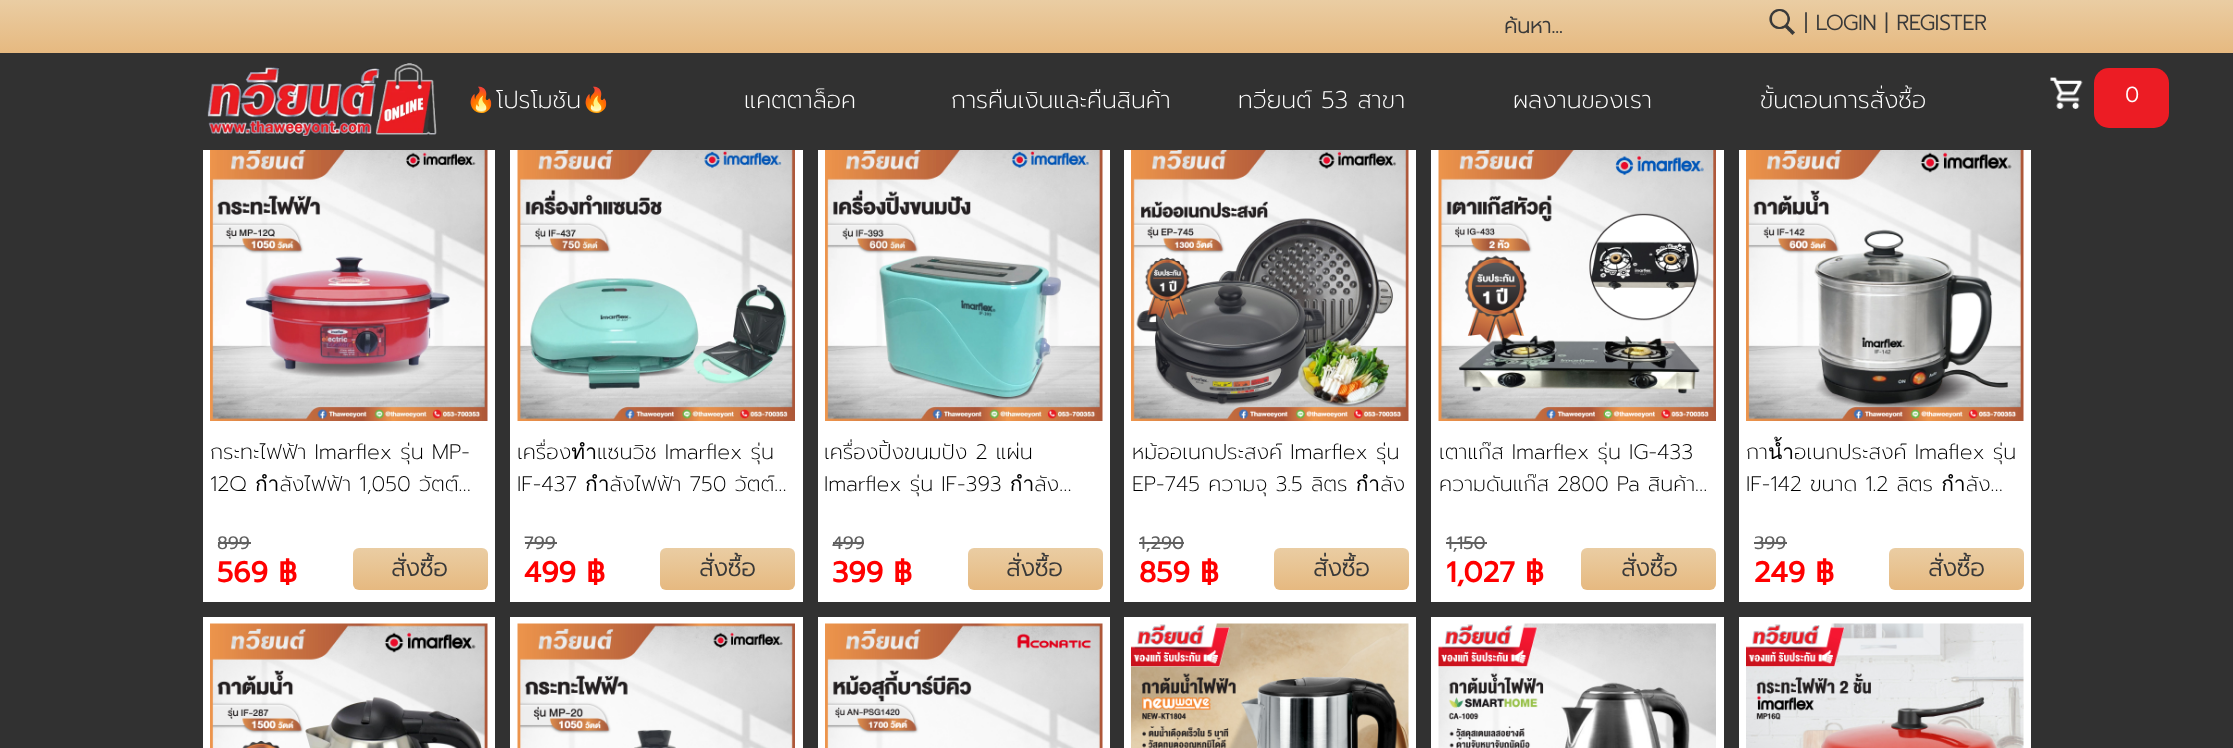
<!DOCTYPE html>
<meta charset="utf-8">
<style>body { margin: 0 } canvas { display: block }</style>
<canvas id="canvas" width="2233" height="748"></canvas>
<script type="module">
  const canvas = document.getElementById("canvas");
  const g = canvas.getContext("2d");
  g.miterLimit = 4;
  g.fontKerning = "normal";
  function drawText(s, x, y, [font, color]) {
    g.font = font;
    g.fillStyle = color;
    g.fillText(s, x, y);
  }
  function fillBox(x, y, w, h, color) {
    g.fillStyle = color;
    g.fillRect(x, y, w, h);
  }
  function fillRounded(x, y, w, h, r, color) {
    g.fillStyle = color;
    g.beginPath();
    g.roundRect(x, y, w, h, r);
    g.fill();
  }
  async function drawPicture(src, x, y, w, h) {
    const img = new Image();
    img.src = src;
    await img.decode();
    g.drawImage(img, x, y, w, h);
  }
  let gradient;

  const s1 = ["bold 21px 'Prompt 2'", "#393939"];
  const s2 = ["24px Noto Color Emoji", "#FFFFFF"];
  const s3 = ["200 24px Prompt", "#FFFFFF"];
  const s4 = ["bold 21px 'Prompt 2'", "#FFFFFF"];
  const s5 = ["200 21px Prompt", "#000000"];
  const s6 = ["18px Prompt", "#5F5F5F"];
  const s7 = ["bold 28.5px Prompt", "#FF0000"];
  const s8 = ["bold 24px 'Prompt 2'", "#393939"];

  fillBox(0, 0, 2233, 748, "#313131");
  gradient = g.createLinearGradient(1117, 53, 1117, 0);
  gradient.addColorStop(0, "#E6B980");
  gradient.addColorStop(1, "#EACDA3");
  g.fillStyle = gradient;
  g.fillRect(0, 0, 2233, 53);
  g.save();
  g.beginPath();
  g.rect(1505, 11, 241, 31);
  g.clip();
  drawText("ค้นหา...", 1504, 33, s1);
  g.restore();
  await drawPicture("pic1.png", 1769, 9, 26, 26);
  drawText("| LOGIN | REGISTER", 1804, 30, s1);
  await drawPicture("pic2.png", 207, 63, 230, 73);
  drawText("🔥", 466, 108, s2);
  drawText("โปรโมชัน", 496, 108, s3);
  drawText("🔥", 581, 108, s2);
  drawText("แคตตาล็อค", 744, 108, s3);
  drawText("การคืนเงินและคืนสินค้า", 951, 108, s3);
  drawText("ทวียนต์ 53 สาขา", 1238, 108, s3);
  drawText("ผลงานของเรา", 1513, 108, s3);
  drawText("ขั้นตอนการสั่งซื้อ", 1760, 108, s3);
  await drawPicture("pic3.png", 2050, 77, 33, 32);
  fillRounded(2094, 68, 75, 60, 15, "#EC1C24");
  drawText("0", 2125, 102, s4);
  fillBox(203, 150, 292, 452, "#FFFFFF");
  await drawPicture("pic4.png", 210, 150, 278, 271);
  drawText("กระทะไฟฟ้า Imarflex รุ่น MP-", 210, 459, s5);
  drawText("12Q กำลังไฟฟ้า 1,050 วัตต์…", 210, 491, s5);
  drawText("899", 217, 549, s6);
  fillBox(218, 542, 33, 2, "#5F5F5F");
  drawText("569 ฿", 217, 582, s7);
  gradient = g.createLinearGradient(420, 590, 420, 548);
  gradient.addColorStop(0, "#E6B980");
  gradient.addColorStop(1, "#EACDA3");
  g.fillStyle = gradient;
  g.beginPath();
  g.roundRect(353, 548, 135, 42, 6);
  g.fill();
  drawText("สั่งซื้อ", 391, 576, s8);
  fillBox(510, 150, 293, 452, "#FFFFFF");
  await drawPicture("pic5.png", 517, 150, 278, 271);
  drawText("เครื่องทำแซนวิช Imarflex รุ่น", 517, 459, s5);
  drawText("IF-437 กำลังไฟฟ้า 750 วัตต์…", 517, 491, s5);
  drawText("799", 524, 549, s6);
  fillBox(525, 542, 32, 2, "#5F5F5F");
  drawText("499 ฿", 524, 582, s7);
  gradient = g.createLinearGradient(728, 590, 728, 548);
  gradient.addColorStop(0, "#E6B980");
  gradient.addColorStop(1, "#EACDA3");
  g.fillStyle = gradient;
  g.beginPath();
  g.roundRect(660, 548, 135, 42, 6);
  g.fill();
  drawText("สั่งซื้อ", 699, 576, s8);
  fillBox(818, 150, 292, 452, "#FFFFFF");
  await drawPicture("pic6.png", 825, 150, 278, 271);
  drawText("เครื่องปิ้งขนมปัง 2 แผ่น", 824, 459, s5);
  drawText("Imarflex รุ่น IF-393 กำลัง…", 824, 491, s5);
  drawText("499", 832, 549, s6);
  fillBox(833, 542, 31, 2, "#5F5F5F");
  drawText("399 ฿", 832, 582, s7);
  gradient = g.createLinearGradient(1035, 590, 1035, 548);
  gradient.addColorStop(0, "#E6B980");
  gradient.addColorStop(1, "#EACDA3");
  g.fillStyle = gradient;
  g.beginPath();
  g.roundRect(968, 548, 135, 42, 6);
  g.fill();
  drawText("สั่งซื้อ", 1006, 576, s8);
  fillBox(1124, 150, 292, 452, "#FFFFFF");
  await drawPicture("pic7.png", 1131, 150, 278, 271);
  drawText("หม้ออเนกประสงค์ Imarflex รุ่น", 1132, 459, s5);
  drawText("EP-745 ความจุ 3.5 ลิตร กำลัง", 1132, 491, s5);
  drawText("1,290", 1139, 549, s6);
  fillBox(1139, 542, 45, 2, "#5F5F5F");
  drawText("859 ฿", 1139, 582, s7);
  gradient = g.createLinearGradient(1341, 590, 1341, 548);
  gradient.addColorStop(0, "#E6B980");
  gradient.addColorStop(1, "#EACDA3");
  g.fillStyle = gradient;
  g.beginPath();
  g.roundRect(1274, 548, 135, 42, 6);
  g.fill();
  drawText("สั่งซื้อ", 1313, 576, s8);
  fillBox(1431, 150, 293, 452, "#FFFFFF");
  await drawPicture("pic8.png", 1438, 150, 278, 271);
  drawText("เตาแก๊ส Imarflex รุ่น IG-433", 1439, 459, s5);
  drawText("ความดันแก๊ส 2800 Pa สินค้า…", 1439, 491, s5);
  drawText("1,150", 1446, 549, s6);
  fillBox(1446, 542, 41, 2, "#5F5F5F");
  drawText("1,027 ฿", 1446, 582, s7);
  gradient = g.createLinearGradient(1649, 590, 1649, 548);
  gradient.addColorStop(0, "#E6B980");
  gradient.addColorStop(1, "#EACDA3");
  g.fillStyle = gradient;
  g.beginPath();
  g.roundRect(1581, 548, 135, 42, 6);
  g.fill();
  drawText("สั่งซื้อ", 1621, 576, s8);
  fillBox(1739, 150, 292, 452, "#FFFFFF");
  await drawPicture("pic9.png", 1746, 150, 278, 271);
  drawText("กาน้ำอเนกประสงค์ Imaflex รุ่น", 1746, 459, s5);
  drawText("IF-142 ขนาด 1.2 ลิตร กำลัง…", 1746, 491, s5);
  drawText("399", 1754, 549, s6);
  fillBox(1754, 542, 33, 2, "#5F5F5F");
  drawText("249 ฿", 1754, 582, s7);
  gradient = g.createLinearGradient(1956, 590, 1956, 548);
  gradient.addColorStop(0, "#E6B980");
  gradient.addColorStop(1, "#EACDA3");
  g.fillStyle = gradient;
  g.beginPath();
  g.roundRect(1889, 548, 135, 42, 6);
  g.fill();
  drawText("สั่งซื้อ", 1928, 576, s8);
  fillBox(203, 617, 292, 131, "#FFFFFF");
  await drawPicture("pic10.png", 210, 623, 278, 125);
  fillBox(510, 617, 293, 131, "#FFFFFF");
  await drawPicture("pic11.png", 517, 623, 278, 125);
  fillBox(818, 617, 292, 131, "#FFFFFF");
  await drawPicture("pic12.png", 825, 623, 278, 125);
  fillBox(1124, 617, 292, 131, "#FFFFFF");
  await drawPicture("pic13.png", 1131, 623, 278, 125);
  fillBox(1431, 617, 293, 131, "#FFFFFF");
  await drawPicture("pic14.png", 1438, 623, 278, 125);
  fillBox(1739, 617, 292, 131, "#FFFFFF");
  await drawPicture("pic15.png", 1746, 623, 278, 125);
</script>
